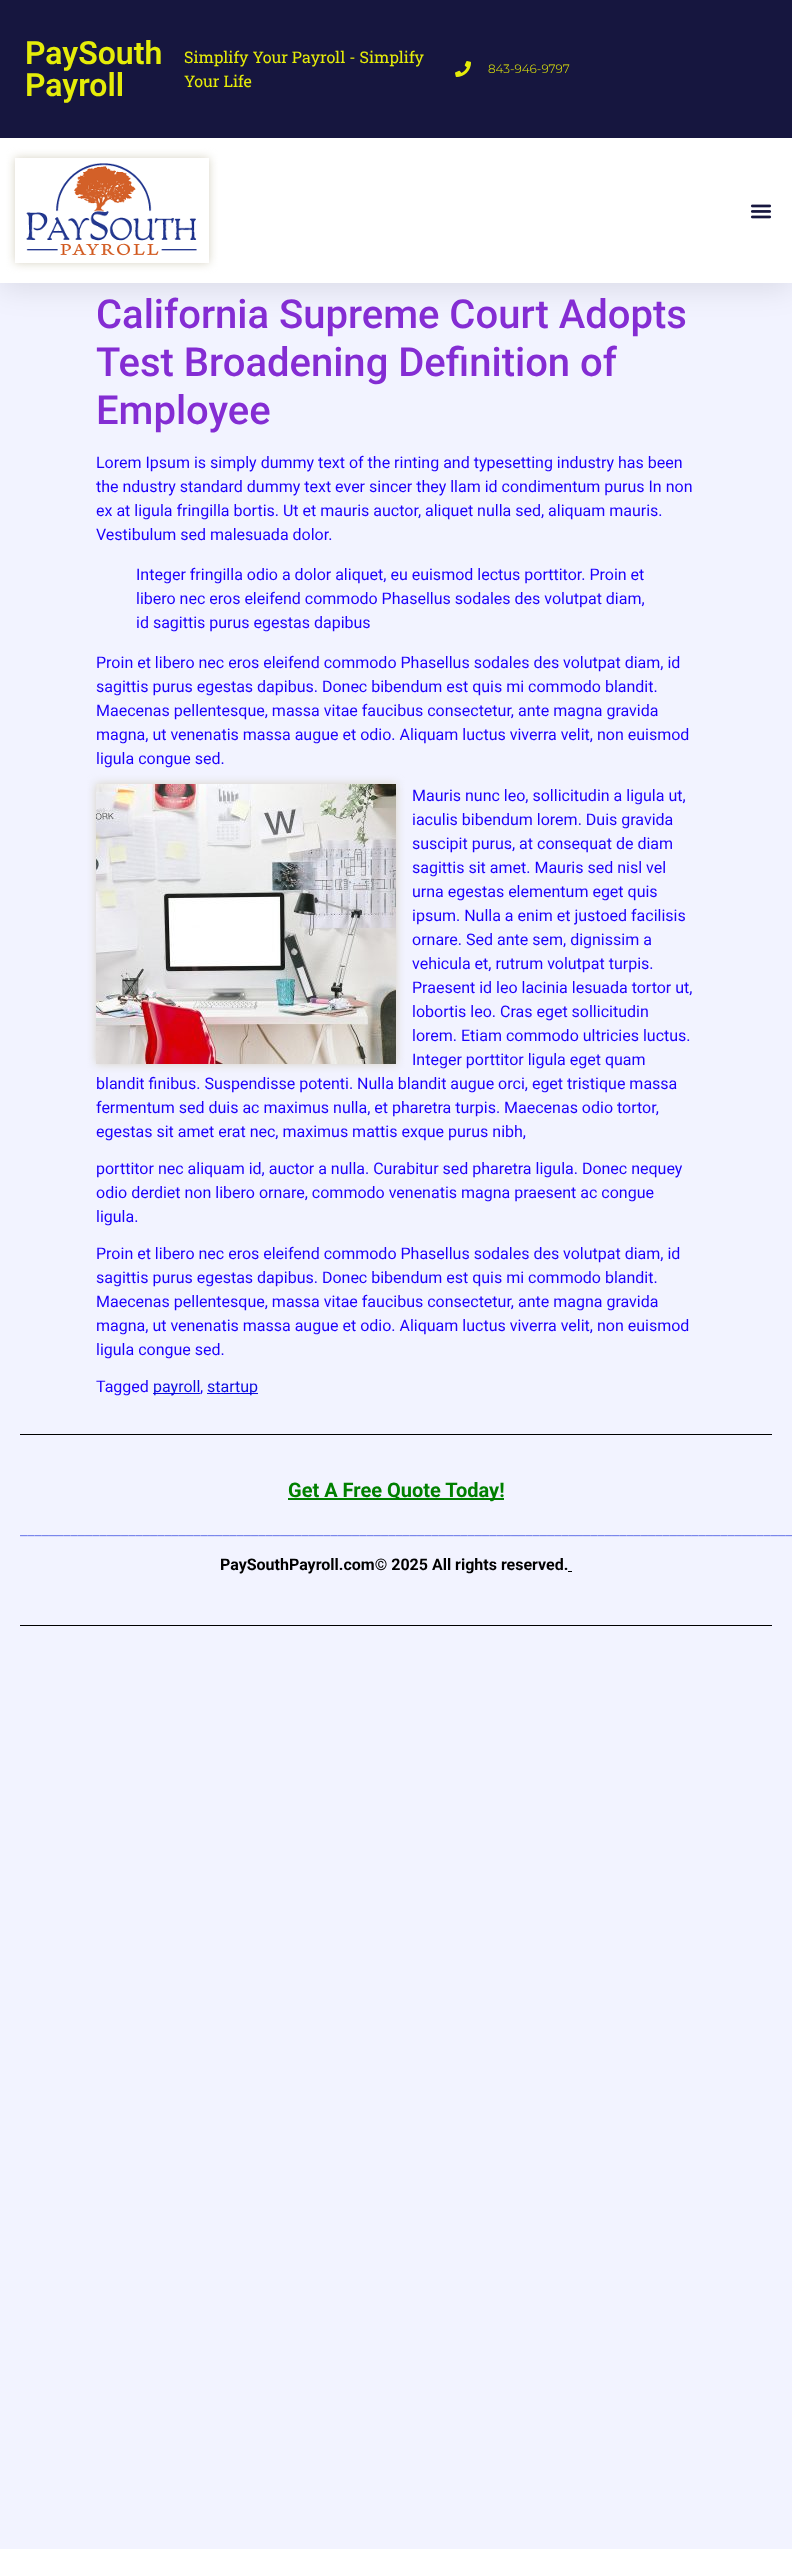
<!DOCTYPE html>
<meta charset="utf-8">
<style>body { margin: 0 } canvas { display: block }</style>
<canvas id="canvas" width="792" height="2549"></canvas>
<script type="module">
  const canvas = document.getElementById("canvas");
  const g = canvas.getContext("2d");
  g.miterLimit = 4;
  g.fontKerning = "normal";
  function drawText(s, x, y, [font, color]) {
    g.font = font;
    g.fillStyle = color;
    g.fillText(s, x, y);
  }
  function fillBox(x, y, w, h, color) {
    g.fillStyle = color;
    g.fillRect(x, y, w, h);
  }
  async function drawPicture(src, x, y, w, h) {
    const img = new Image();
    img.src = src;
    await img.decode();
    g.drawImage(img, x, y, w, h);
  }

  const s1 = ["600 32px Roboto", "#E5EC09"];
  const s2 = ["16px Roboto Slab", "#E5EC09"];
  const s3 = ["300 12px Montserrat", "#E5EC09"];
  const s4 = ["500 40px Roboto", "#842DD3"];
  const s5 = ["16px Roboto", "#1C01FC"];
  const s6 = ["16px Roboto", "#0D0CE0"];
  const s7 = ["bold 20px Roboto", "#008000"];
  const s8 = ["16px Roboto", "#7B87EC"];
  const s9 = ["bold 16px Roboto", "#000000"];

  fillBox(0, 0, 792, 2549, "#F2F3FF");
  g.fillStyle = "rgba(0, 0, 0, 0.1)";
  g.filter = "blur(15px)";
  g.beginPath();
  g.rect(0, 5, 792, 283);
  g.fill();
  g.filter = "none";
  fillBox(0, 0, 792, 138, "#16163F");
  drawText("PaySouth", 25, 64, s1);
  drawText("Payroll", 25, 96, s1);
  drawText("Simplify Your Payroll - Simplify", 184, 63, s2);
  drawText("Your Life", 184, 87, s2);
  await drawPicture("pic1.png", 455, 61, 16, 16);
  drawText("843-946-9797", 488, 73, s3);
  fillBox(0, 138, 792, 145, "#FFFFFF");
  g.save();
  g.beginPath();
  g.moveTo(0, 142);
  g.lineTo(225, 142);
  g.lineTo(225, 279);
  g.lineTo(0, 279);
  g.closePath();
  g.moveTo(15, 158);
  g.lineTo(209, 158);
  g.lineTo(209, 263);
  g.lineTo(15, 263);
  g.closePath();
  g.clip("evenodd");
  g.fillStyle = "#D6D2C2";
  g.filter = "blur(5px)";
  g.beginPath();
  g.rect(15, 158, 194, 105);
  g.fill();
  g.filter = "none";
  g.restore();
  await drawPicture("pic2.png", 26, 163, 171, 93);
  await drawPicture("pic3.png", 750, 204, 22, 15);
  drawText("California Supreme Court Adopts", 96, 328, s4);
  drawText("Test Broadening Definition of", 96, 376, s4);
  drawText("Employee", 96, 424, s4);
  drawText("Lorem Ipsum is simply dummy text of the rinting and typesetting industry has been", 96, 468, s5);
  drawText("the ndustry standard dummy text ever sincer they llam id condimentum purus In non", 96, 492, s5);
  drawText("ex at ligula fringilla bortis. Ut et mauris auctor, aliquet nulla sed, aliquam mauris.", 96, 516, s5);
  drawText("Vestibulum sed malesuada dolor.", 96, 540, s5);
  drawText("Integer fringilla odio a dolor aliquet, eu euismod lectus porttitor. Proin et", 136, 580, s5);
  drawText("libero nec eros eleifend commodo Phasellus sodales des volutpat diam,", 136, 604, s5);
  drawText("id sagittis purus egestas dapibus", 136, 628, s5);
  drawText("Proin et libero nec eros eleifend commodo Phasellus sodales des volutpat diam, id", 96, 668, s5);
  drawText("sagittis purus egestas dapibus. Donec bibendum est quis mi commodo blandit.", 96, 692, s5);
  drawText("Maecenas pellentesque, massa vitae faucibus consectetur, ante magna gravida", 96, 716, s5);
  drawText("magna, ut venenatis massa augue et odio. Aliquam luctus viverra velit, non euismod", 96, 740, s5);
  drawText("ligula congue sed.", 96, 764, s5);
  g.fillStyle = "#D6D2C2";
  g.filter = "blur(5px)";
  g.beginPath();
  g.rect(96, 784, 300, 280);
  g.fill();
  g.filter = "none";
  await drawPicture("pic4.png", 96, 784, 300, 280);
  drawText("Mauris nunc leo, sollicitudin a ligula ut,", 412, 801, s5);
  drawText("iaculis bibendum lorem. Duis gravida", 412, 825, s5);
  drawText("suscipit purus, at consequat de diam", 412, 849, s5);
  drawText("sagittis sit amet. Mauris sed nisl vel", 412, 873, s5);
  drawText("urna egestas elementum eget quis", 412, 897, s5);
  drawText("ipsum. Nulla a enim et justoed facilisis", 412, 921, s5);
  drawText("ornare. Sed ante sem, dignissim a", 412, 945, s5);
  drawText("vehicula et, rutrum volutpat turpis.", 412, 969, s5);
  drawText("Praesent id leo lacinia lesuada tortor ut,", 412, 993, s5);
  drawText("lobortis leo. Cras eget sollicitudin", 412, 1017, s5);
  drawText("lorem. Etiam commodo ultricies luctus.", 412, 1041, s5);
  drawText("Integer porttitor ligula eget quam", 412, 1065, s5);
  drawText("blandit finibus. Suspendisse potenti. Nulla blandit augue orci, eget tristique massa", 96, 1089, s5);
  drawText("fermentum sed duis ac maximus nulla, et pharetra turpis. Maecenas odio tortor,", 96, 1113, s5);
  drawText("egestas sit amet erat nec, maximus mattis exque purus nibh,", 96, 1137, s5);
  drawText("porttitor nec aliquam id, auctor a nulla. Curabitur sed pharetra ligula. Donec nequey", 96, 1174, s5);
  drawText("odio derdiet non libero ornare, commodo venenatis magna praesent ac congue", 96, 1198, s5);
  drawText("ligula.", 96, 1222, s5);
  drawText("Proin et libero nec eros eleifend commodo Phasellus sodales des volutpat diam, id", 96, 1259, s5);
  drawText("sagittis purus egestas dapibus. Donec bibendum est quis mi commodo blandit.", 96, 1283, s5);
  drawText("Maecenas pellentesque, massa vitae faucibus consectetur, ante magna gravida", 96, 1307, s5);
  drawText("magna, ut venenatis massa augue et odio. Aliquam luctus viverra velit, non euismod", 96, 1331, s5);
  drawText("ligula congue sed.", 96, 1355, s5);
  drawText("Tagged", 96, 1392, s5);
  fillBox(153, 1393, 47, 1, "#0D0CE0");
  drawText("payroll", 153, 1392, s6);
  drawText(",", 200, 1392, s5);
  fillBox(207, 1393, 51, 1, "#0D0CE0");
  drawText("startup", 207, 1392, s6);
  fillBox(20, 1434, 752, 1, "#000000");
  fillBox(288, 1498, 216, 2, "#008000");
  drawText("Get A Free Quote Today!", 288, 1497, s7);
  drawText("___________________________________________________________________________________________________________", 20, 1535, s8);
  drawText("PaySouthPayroll.com© 2025 All rights reserved.", 220, 1570, s9);
  fillBox(568, 1571, 4, 1, "#000000");
  fillBox(20, 1625, 752, 1, "#000000");
</script>
